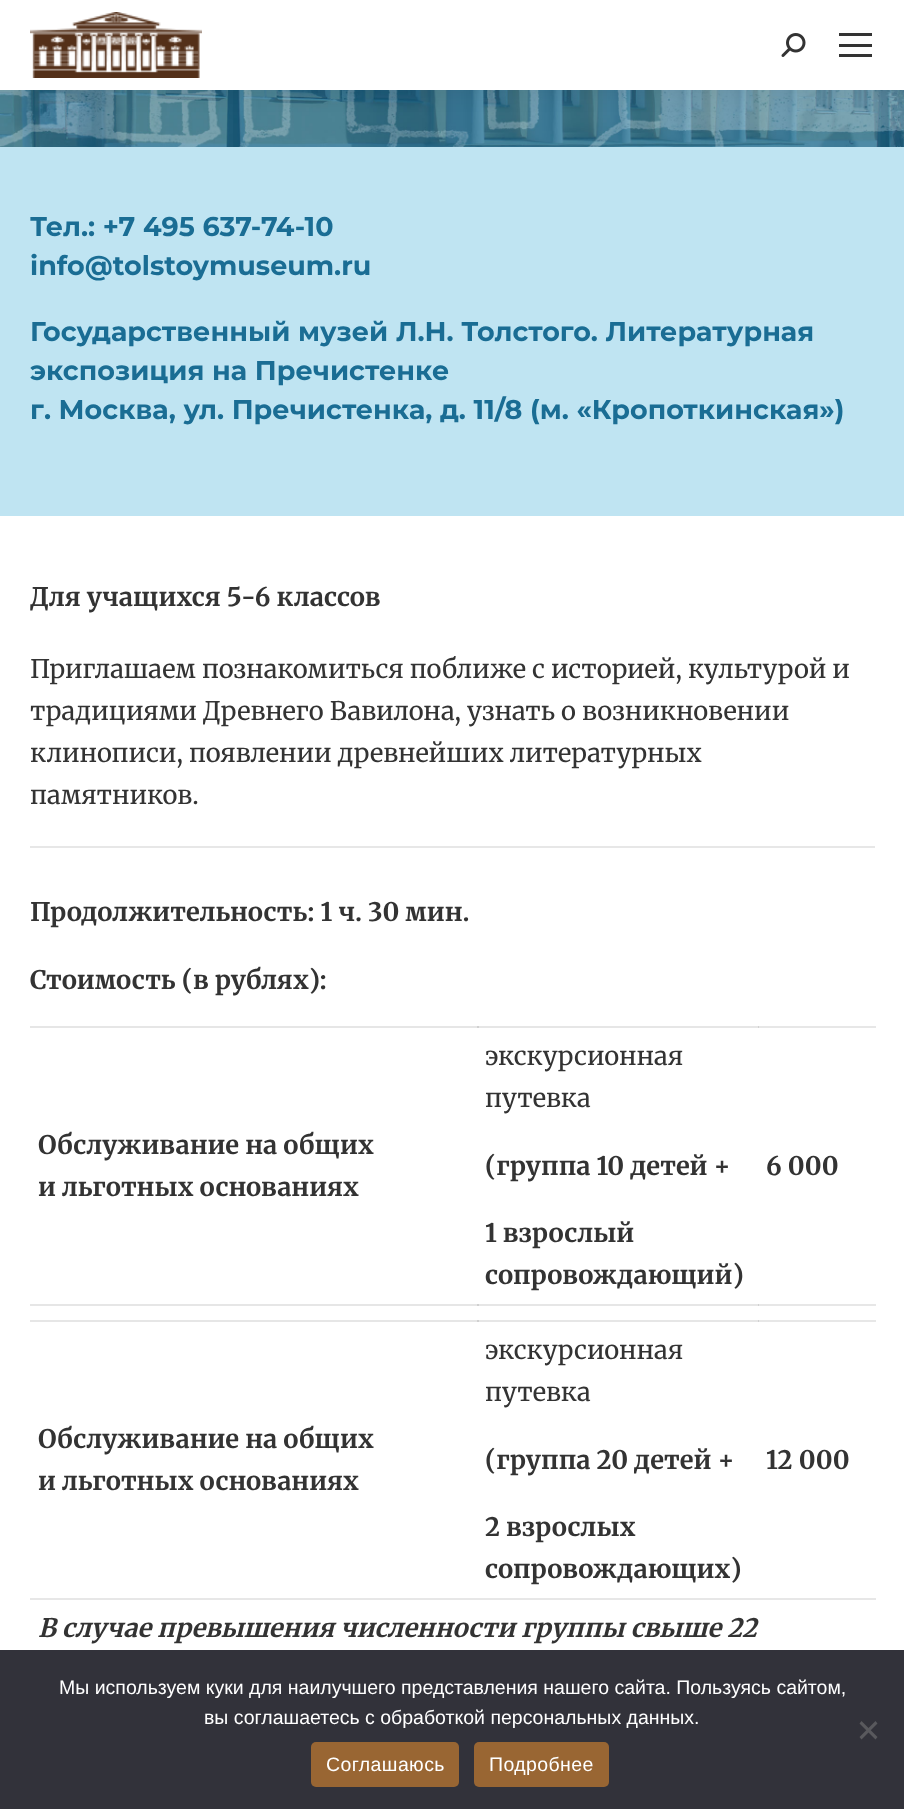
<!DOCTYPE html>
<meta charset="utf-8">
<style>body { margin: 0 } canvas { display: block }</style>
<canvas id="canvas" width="904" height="1809"></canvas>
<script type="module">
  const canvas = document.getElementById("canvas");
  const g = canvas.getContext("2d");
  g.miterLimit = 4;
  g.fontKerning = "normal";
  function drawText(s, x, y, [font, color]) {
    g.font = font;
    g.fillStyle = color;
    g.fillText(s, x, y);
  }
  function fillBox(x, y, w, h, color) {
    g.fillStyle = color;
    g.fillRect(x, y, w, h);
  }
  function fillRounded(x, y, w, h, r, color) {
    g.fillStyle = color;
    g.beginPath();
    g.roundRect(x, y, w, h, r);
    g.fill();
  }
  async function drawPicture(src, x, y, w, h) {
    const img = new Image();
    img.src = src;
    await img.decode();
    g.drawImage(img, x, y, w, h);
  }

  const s1 = ["bold 27px Montserrat", "#1A6D94"];
  const s2 = ["bold 25.5px Merriweather", "#333333"];
  const s3 = ["25.5px Merriweather", "#333333"];
  const s4 = ["italic bold 25.5px Merriweather", "#333333"];
  const s5 = ["19.5px Liberation Sans", "#FFFFFF"];

  fillBox(0, 0, 904, 1809, "#FFFFFF");
  await drawPicture("pic3.png", 0, 90, 904, 57);
  g.fillStyle = "rgba(0, 0, 0, 0.07)";
  g.filter = "blur(11px)";
  g.beginPath();
  g.rect(-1, -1, 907, 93);
  g.fill();
  g.filter = "none";
  fillBox(0, 0, 904, 90, "#FFFFFF");
  await drawPicture("pic1.png", 30, 12, 172, 66);
  await drawPicture("pic2.png", 781, 33, 25, 24);
  fillBox(839, 33, 33, 3, "#333333");
  fillBox(839, 44, 33, 3, "#333333");
  fillBox(839, 54, 33, 3, "#333333");
  fillBox(0, 147, 904, 369, "#BFE4F2");
  drawText("Тел.: +7 495 637-74-10", 30, 236, s1);
  drawText("info@tolstoymuseum.ru", 30, 275, s1);
  drawText("Государственный музей Л.Н. Толстого. Литературная", 30, 341, s1);
  drawText("экспозиция на Пречистенке", 30, 380, s1);
  drawText("г. Москва, ул. Пречистенка, д. 11/8 (м. «Кропоткинская»)", 30, 419, s1);
  drawText("Для учащихся 5-6 классов", 30, 606, s2);
  drawText("Приглашаем познакомиться поближе с историей, культурой и", 30, 678, s3);
  drawText("традициями Древнего Вавилона, узнать о возникновении", 30, 720, s3);
  drawText("клинописи, появлении древнейших литературных", 30, 762, s3);
  drawText("памятников.", 30, 804, s3);
  fillBox(30, 846, 845, 2, "#E7E7E7");
  drawText("Продолжительность: 1 ч. 30 мин.", 30, 921, s2);
  drawText("Стоимость (в рублях):", 30, 989, s2);
  fillBox(758, 1026, 118, 2, "#E7E7E7");
  fillBox(477, 1026, 282, 2, "rgba(51, 51, 51, 0.12)");
  fillBox(30, 1026, 449, 2, "rgba(51, 51, 51, 0.12)");
  drawText("Обслуживание на общих", 38, 1154, s2);
  drawText("и льготных основаниях", 38, 1196, s2);
  drawText("экскурсионная", 485, 1065, s3);
  drawText("путевка", 485, 1107, s3);
  drawText("(группа 10 детей +", 485, 1175, s2);
  drawText("1 взрослый", 485, 1242, s2);
  drawText("сопровождающий)", 485, 1284, s2);
  drawText("6 000", 766, 1175, s2);
  fillBox(758, 1304, 118, 2, "#E7E7E7");
  fillBox(477, 1304, 282, 2, "rgba(51, 51, 51, 0.12)");
  fillBox(30, 1304, 449, 2, "rgba(51, 51, 51, 0.12)");
  fillBox(758, 1320, 118, 2, "#E7E7E7");
  fillBox(477, 1320, 282, 2, "rgba(51, 51, 51, 0.12)");
  fillBox(30, 1320, 449, 2, "rgba(51, 51, 51, 0.12)");
  drawText("Обслуживание на общих", 38, 1448, s2);
  drawText("и льготных основаниях", 38, 1490, s2);
  drawText("экскурсионная", 485, 1359, s3);
  drawText("путевка", 485, 1401, s3);
  drawText("(группа 20 детей +", 485, 1469, s2);
  drawText("2 взрослых", 485, 1536, s2);
  drawText("сопровождающих)", 485, 1578, s2);
  drawText("12 000", 766, 1469, s2);
  fillBox(30, 1598, 846, 2, "#E7E7E7");
  drawText("В случае превышения численности группы свыше 22", 38, 1637, s4);
  fillBox(0, 1650, 904, 159, "#32323A");
  drawText("Мы используем куки для наилучшего представления нашего сайта. Пользуясь сайтом,", 59, 1694, s5);
  drawText("вы соглашаетесь с обработкой персональных данных.", 204, 1724, s5);
  g.fillStyle = "#59595D";
  g.beginPath();
  g.moveTo(875.5, 1721);
  g.lineTo(877.5, 1723.5);
  g.lineTo(861.5, 1739.5);
  g.lineTo(859.5, 1737);
  g.closePath();
  g.fill();
  g.beginPath();
  g.moveTo(859.5, 1723.5);
  g.lineTo(861.5, 1721);
  g.lineTo(877.5, 1737);
  g.lineTo(875.5, 1739.5);
  g.closePath();
  g.fill();
  fillRounded(311, 1742, 148, 45, 5, "#996633");
  g.letterSpacing = "0.4px";
  drawText("Соглашаюсь", 326, 1771, s5);
  fillRounded(474, 1742, 135, 45, 5, "#996633");
  drawText("Подробнее", 489, 1771, s5);
</script>
